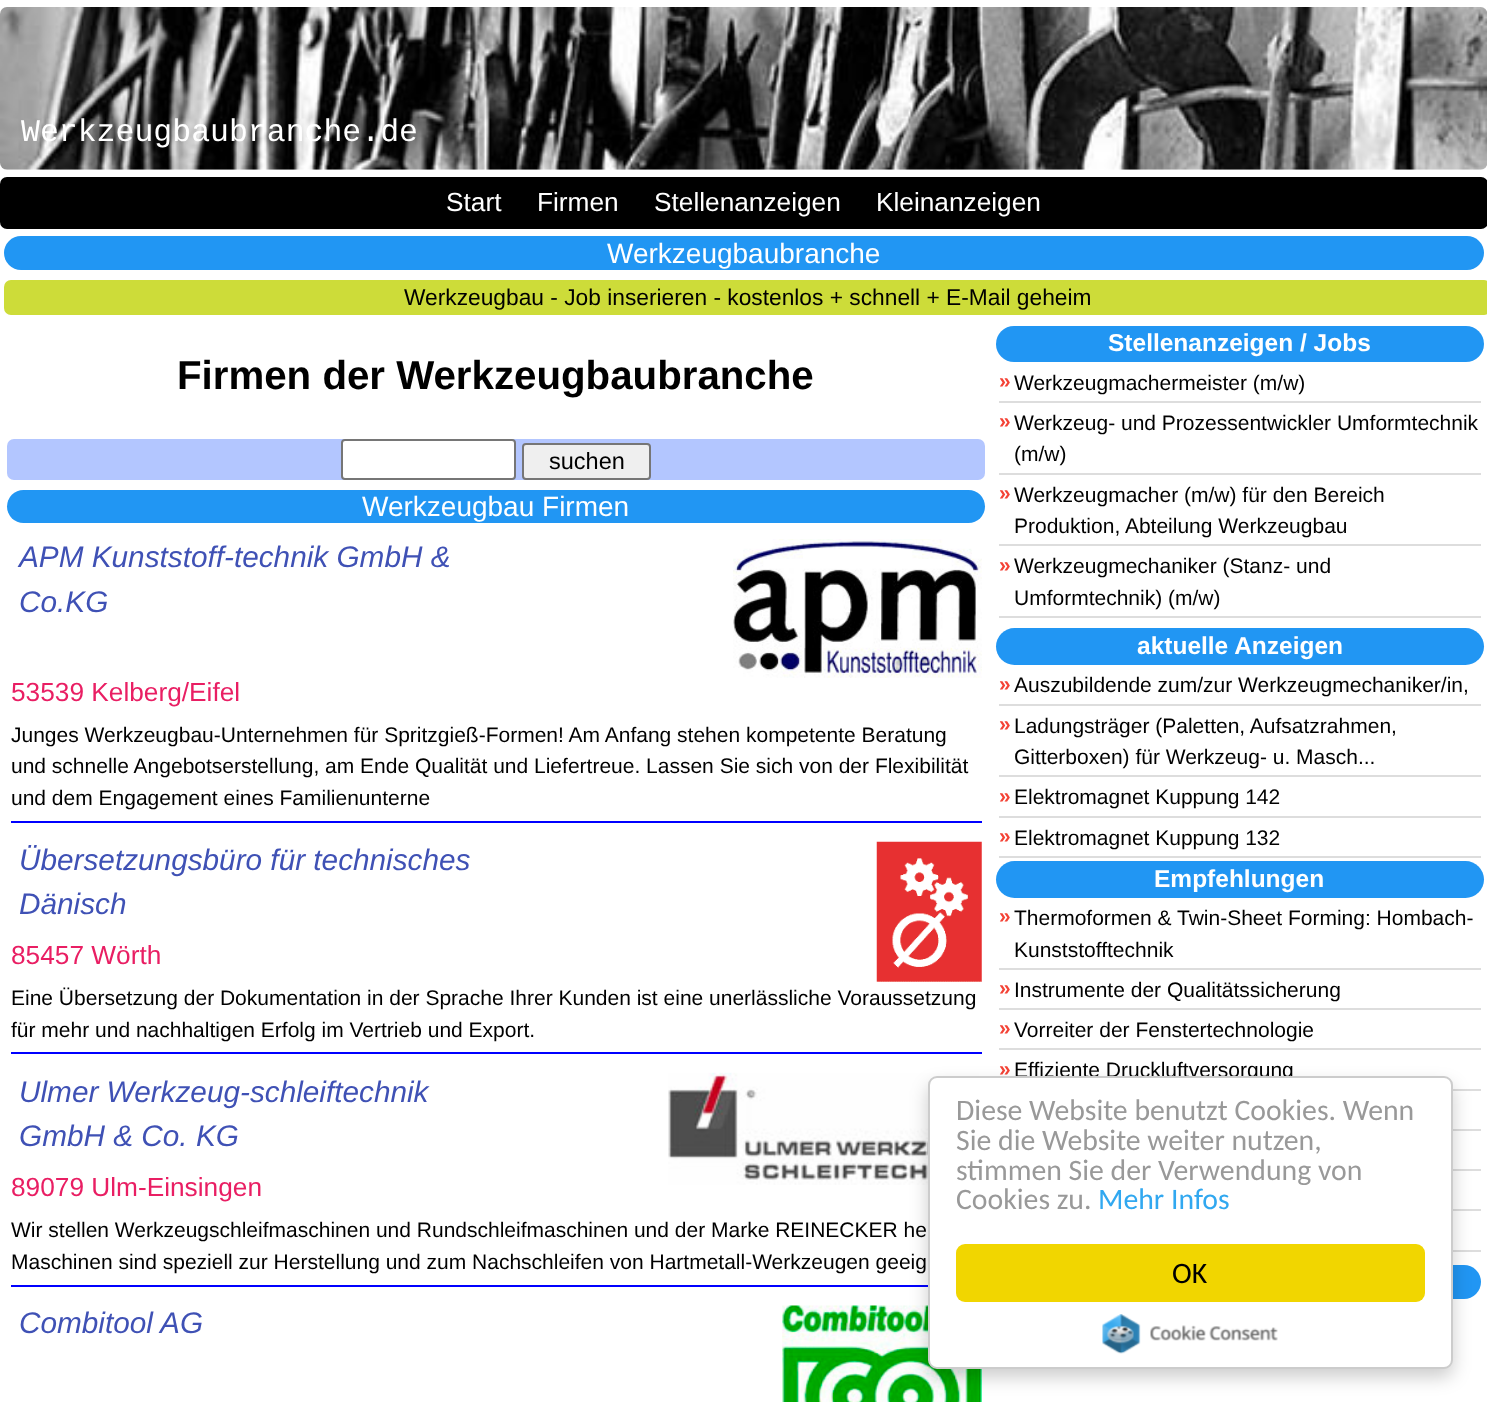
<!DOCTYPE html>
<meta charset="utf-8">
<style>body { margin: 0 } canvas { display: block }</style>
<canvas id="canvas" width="1487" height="1402"></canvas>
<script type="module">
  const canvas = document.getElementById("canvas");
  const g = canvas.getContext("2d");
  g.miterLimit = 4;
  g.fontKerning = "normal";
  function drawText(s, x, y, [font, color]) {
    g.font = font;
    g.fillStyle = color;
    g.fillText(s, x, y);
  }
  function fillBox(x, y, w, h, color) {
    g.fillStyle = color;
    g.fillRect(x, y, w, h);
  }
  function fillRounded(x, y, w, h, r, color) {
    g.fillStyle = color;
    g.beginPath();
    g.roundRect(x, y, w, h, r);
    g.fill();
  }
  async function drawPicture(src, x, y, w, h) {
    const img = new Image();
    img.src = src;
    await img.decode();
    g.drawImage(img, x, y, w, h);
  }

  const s1 = ["31.5px Liberation Mono", "#FFFFFF"];
  const s2 = ["26.25px Liberation Sans", "#FFFFFF"];
  const s3 = ["28px Liberation Sans", "#FFFFFF"];
  const s4 = ["22.75px Liberation Sans", "#000000"];
  const s5 = ["bold 40.25px Liberation Sans", "#000000"];
  const s6 = ["23.5px Liberation Sans", "#000000"];
  const s7 = ["italic 29.75px Liberation Sans", "#3F51B5"];
  const s8 = ["26.25px Liberation Sans", "#E91E63"];
  const s9 = ["21px Liberation Sans", "#000000"];
  const s10 = ["bold 24.5px Liberation Sans", "#FFFFFF"];
  const s11 = ["bold 21px Liberation Sans", "#F44336"];
  const s12 = ["29.75px Carlito", "#999999"];
  const s13 = ["29.75px Carlito", "#31A8F0"];
  const s14 = ["29.75px Carlito", "#000000"];

  fillBox(0, 0, 1487, 1402, "#FFFFFF");
  await drawPicture("pic1.png", 0, 7, 1487, 163);
  drawText("Werkzeugbaubranche.de", 21, 141, s1);
  fillRounded(0, 177, 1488, 52, 7, "#000000");
  drawText("Start", 446, 211, s2);
  drawText("Firmen", 537, 211, s2);
  drawText("Stellenanzeigen", 654, 211, s2);
  drawText("Kleinanzeigen", 876, 211, s2);
  fillRounded(4, 236, 1480, 34, 17, "#2196F3");
  drawText("Werkzeugbaubranche", 607, 263, s3);
  fillRounded(4, 280, 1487, 35, 7, "#CDDC39");
  drawText("Werkzeugbau - Job inserieren - kostenlos + schnell + E-Mail geheim", 404, 305, s4);
  drawText("Firmen der Werkzeugbaubranche", 177, 389, s5);
  fillRounded(7, 439, 978, 41, 7, "#B3C6FF");
  g.fillStyle = "#FFFFFF";
  g.beginPath();
  g.roundRect(342, 440, 173, 39, 3);
  g.fill();
  g.strokeStyle = "#767676";
  g.lineWidth = 2;
  g.stroke();
  g.fillStyle = "#EFEFEF";
  g.beginPath();
  g.roundRect(523, 444, 127, 35, 3);
  g.fill();
  g.stroke();
  drawText("suchen", 549, 469, s6);
  fillRounded(7, 490, 978, 33, 16.5, "#2196F3");
  drawText("Werkzeugbau Firmen", 362, 516, s3);
  drawText("APM Kunststoff-technik GmbH &", 19, 567, s7);
  drawText("Co.KG", 19, 612, s7);
  await drawPicture("pic2.png", 733, 539, 249, 139);
  drawText("53539 Kelberg/Eifel", 11, 701, s8);
  drawText("Junges Werkzeugbau-Unternehmen für Spritzgieß-Formen! Am Anfang stehen kompetente Beratung", 11, 742, s9);
  drawText("und schnelle Angebotserstellung, am Ende Qualität und Liefertreue. Lassen Sie sich von der Flexibilität", 11, 773, s9);
  drawText("und dem Engagement eines Familienunterne", 11, 805, s9);
  fillBox(11, 821, 971, 2, "#0000FF");
  drawText("Übersetzungsbüro für technisches", 19, 870, s7);
  drawText("Dänisch", 19, 914, s7);
  await drawPicture("pic3.png", 876, 841, 106, 141);
  drawText("85457 Wörth", 11, 964, s8);
  drawText("Eine Übersetzung der Dokumentation in der Sprache Ihrer Kunden ist eine unerlässliche Voraussetzung", 11, 1005, s9);
  drawText("für mehr und nachhaltigen Erfolg im Vertrieb und Export.", 11, 1037, s9);
  fillBox(11, 1052, 971, 2, "#0000FF");
  drawText("Ulmer Werkzeug-schleiftechnik", 19, 1102, s7);
  drawText("GmbH & Co. KG", 19, 1146, s7);
  await drawPicture("pic4.png", 668, 1072, 311, 113);
  drawText("89079 Ulm-Einsingen", 11, 1196, s8);
  drawText("Wir stellen Werkzeugschleifmaschinen und Rundschleifmaschinen und der Marke REINECKER he", 11, 1237, s9);
  drawText("Maschinen sind speziell zur Herstellung und zum Nachschleifen von Hartmetall-Werkzeugen geeig", 11, 1269, s9);
  fillBox(11, 1285, 917, 2, "#0000FF");
  drawText("Combitool AG", 19, 1333, s7);
  await drawPicture("pic5.png", 782, 1305, 200, 97);
  fillRounded(996, 326, 488, 36, 18, "#2196F3");
  drawText("Stellenanzeigen / Jobs", 1108, 351, s10);
  fillBox(999, 401, 482, 2, "#DDDDDD");
  drawText("»", 999, 388, s11);
  drawText("Werkzeugmachermeister (m/w)", 1014, 390, s9);
  fillBox(999, 473, 482, 2, "#DDDDDD");
  drawText("»", 999, 428, s11);
  drawText("Werkzeug- und Prozessentwickler Umformtechnik", 1014, 430, s9);
  drawText("(m/w)", 1014, 461, s9);
  fillBox(999, 544, 482, 2, "#DDDDDD");
  drawText("»", 999, 500, s11);
  drawText("Werkzeugmacher (m/w) für den Bereich", 1014, 502, s9);
  drawText("Produktion, Abteilung Werkzeugbau", 1014, 533, s9);
  fillBox(999, 616, 482, 2, "#DDDDDD");
  drawText("»", 999, 572, s11);
  drawText("Werkzeugmechaniker (Stanz- und", 1014, 573, s9);
  drawText("Umformtechnik) (m/w)", 1014, 605, s9);
  fillRounded(996, 628, 488, 37, 18.5, "#2196F3");
  drawText("aktuelle Anzeigen", 1137, 654, s10);
  fillBox(999, 704, 482, 2, "#DDDDDD");
  drawText("»", 999, 691, s11);
  drawText("Auszubildende zum/zur Werkzeugmechaniker/in,", 1014, 692, s9);
  fillBox(999, 775, 482, 2, "#DDDDDD");
  drawText("»", 999, 731, s11);
  drawText("Ladungsträger (Paletten, Aufsatzrahmen,", 1014, 733, s9);
  drawText("Gitterboxen) für Werkzeug- u. Masch...", 1014, 764, s9);
  fillBox(999, 816, 482, 2, "#DDDDDD");
  drawText("»", 999, 803, s11);
  drawText("Elektromagnet Kuppung 142", 1014, 804, s9);
  fillBox(999, 856, 482, 2, "#DDDDDD");
  drawText("»", 999, 843, s11);
  drawText("Elektromagnet Kuppung 132", 1014, 845, s9);
  fillRounded(996, 861, 488, 37, 18.5, "#2196F3");
  drawText("Empfehlungen", 1154, 887, s10);
  fillBox(999, 968, 482, 2, "#DDDDDD");
  drawText("»", 999, 923, s11);
  drawText("Thermoformen & Twin-Sheet Forming: Hombach-", 1014, 925, s9);
  drawText("Kunststofftechnik", 1014, 957, s9);
  fillBox(999, 1008, 482, 2, "#DDDDDD");
  drawText("»", 999, 995, s11);
  drawText("Instrumente der Qualitätssicherung", 1014, 997, s9);
  fillBox(999, 1048, 482, 2, "#DDDDDD");
  drawText("»", 999, 1035, s11);
  drawText("Vorreiter der Fenstertechnologie", 1014, 1037, s9);
  drawText("»", 999, 1076, s11);
  fillBox(1453, 1089, 28, 2, "#DDDDDD");
  drawText("Effiziente Druckluftversorgung", 1014, 1077, s9);
  fillBox(1453, 1129, 28, 2, "#DDDDDD");
  fillBox(1453, 1169, 28, 2, "#DDDDDD");
  fillBox(1453, 1209, 28, 2, "#DDDDDD");
  fillBox(1453, 1250, 28, 2, "#DDDDDD");
  fillRounded(999, 1265, 482, 34, 17, "#2196F3");
  g.fillStyle = "rgba(0, 0, 0, 0.2)";
  g.filter = "blur(9px)";
  g.beginPath();
  g.roundRect(928, 1085, 525, 292, 9);
  g.fill();
  g.filter = "none";
  g.fillStyle = "#FFFFFF";
  g.beginPath();
  g.roundRect(929, 1077, 523, 291, 8);
  g.fill();
  g.strokeStyle = "#CCCCCC";
  g.stroke();
  drawText("Diese Website benutzt Cookies. Wenn", 956, 1120, s12);
  drawText("Sie die Website weiter nutzen,", 956, 1150, s12);
  drawText("stimmen Sie der Verwendung von", 956, 1180, s12);
  drawText("Cookies zu.", 956, 1209, s12);
  drawText("Mehr Infos", 1098, 1209, s13);
  fillRounded(956, 1244, 469, 58, 9, "#F1D600");
  drawText("OK", 1172, 1283, s14);
  await drawPicture("pic6.png", 1102, 1314, 176, 40);
</script>
